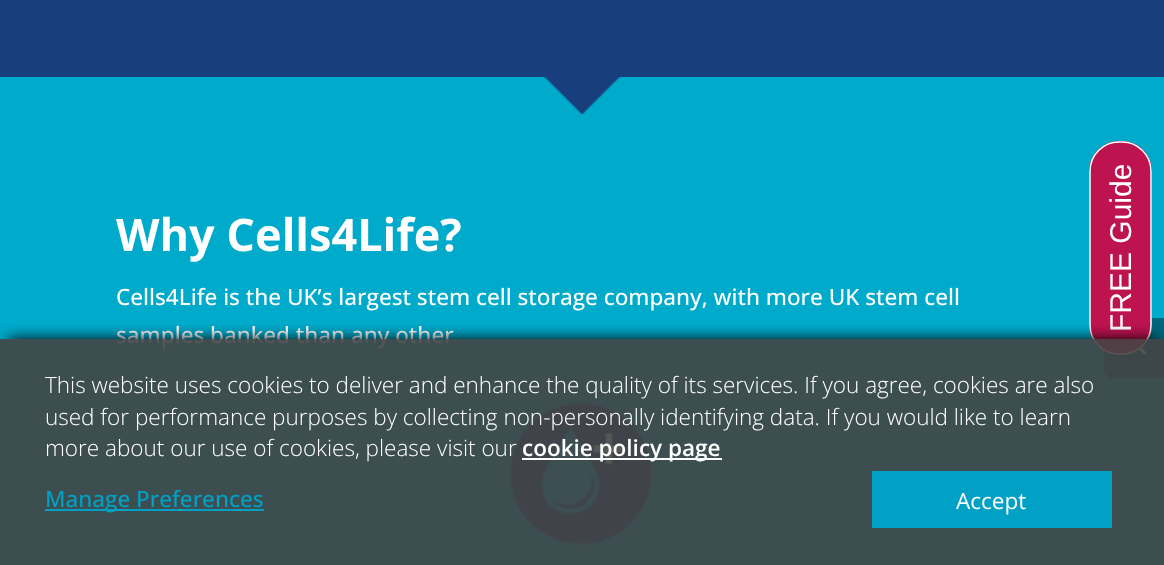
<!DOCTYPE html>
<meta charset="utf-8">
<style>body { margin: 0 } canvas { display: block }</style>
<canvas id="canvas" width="1164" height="565"></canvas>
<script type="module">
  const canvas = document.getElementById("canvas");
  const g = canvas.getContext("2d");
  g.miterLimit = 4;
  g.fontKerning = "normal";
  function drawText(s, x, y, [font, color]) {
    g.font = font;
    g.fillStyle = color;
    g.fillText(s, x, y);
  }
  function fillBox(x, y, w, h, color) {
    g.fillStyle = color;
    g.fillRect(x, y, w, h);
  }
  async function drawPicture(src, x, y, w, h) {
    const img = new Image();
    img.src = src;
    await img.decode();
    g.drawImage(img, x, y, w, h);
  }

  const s1 = ["bold 45px Open Sans", "#FFFFFF"];
  const s2 = ["500 22.5px Open Sans", "#FFFFFF"];
  const s3 = ["300 22.5px Open Sans", "#FFFFFF"];
  const s4 = ["600 22.5px Open Sans", "#FFFFFF"];
  const s5 = ["500 22.5px Open Sans", "#01A1C5"];
  const s6 = ["22.5px Open Sans", "#FFFFFF"];

  fillBox(0, 0, 1164, 565, "#183E7D");
  fillBox(0, 77, 1164, 488, "#00AACB");
  await drawPicture("pic1.png", 544, 77, 76, 37);
  drawText("Why Cells4Life?", 116, 251, s1);
  drawText("Cells4Life is the UK’s largest stem cell storage company, with more UK stem cell", 116, 305, s2);
  drawText("samples banked than any other", 116, 343, s2);
  await drawPicture("pic2.png", 509, 403, 143, 142);
  g.fillStyle = "#00667A";
  g.beginPath();
  g.roundRect(1104, 318, 60, 60, [8, 0, 0, 8]);
  g.fill();
  await drawPicture("pic3.png", 1126, 347, 20, 8);
  g.fillStyle = "#BD144F";
  g.beginPath();
  g.moveTo(1089, 325);
  g.lineTo(1089, 171);
  g.bezierCurveTo(1089, 155, 1102, 141, 1119, 141);
  g.lineTo(1122, 141);
  g.bezierCurveTo(1139, 141, 1152, 155, 1152, 171);
  g.lineTo(1152, 325);
  g.bezierCurveTo(1152, 341, 1139, 355, 1122, 355);
  g.lineTo(1119, 355);
  g.bezierCurveTo(1102, 355, 1089, 341, 1089, 325);
  g.closePath();
  g.fill();
  g.beginPath();
  g.moveTo(1090, 325);
  g.lineTo(1090, 171.5);
  g.bezierCurveTo(1090, 155, 1103, 142, 1119, 142);
  g.lineTo(1122, 142);
  g.bezierCurveTo(1138, 142, 1151, 155, 1151, 171.5);
  g.lineTo(1151, 325);
  g.bezierCurveTo(1151, 341, 1138, 354, 1122, 354);
  g.lineTo(1119, 354);
  g.bezierCurveTo(1103, 354, 1090, 341, 1090, 325);
  g.closePath();
  g.strokeStyle = "#FFFFFF";
  g.lineWidth = 1.5;
  g.stroke();
  g.font = "30px Liberation Sans";
  g.fillStyle = "#FFFFFF";
  g.save();
  g.translate(1131, 332);
  g.rotate(-90 * Math.PI / 180);
  g.fillText("FREE Guide", 0, 0);
  g.restore();
  g.save();
  g.beginPath();
  g.rect(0, 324, 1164, 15);
  g.clip();
  g.fillStyle = "#000000";
  g.filter = "blur(7.5px)";
  g.beginPath();
  g.rect(8, 339, 1149, 212);
  g.fill();
  g.filter = "none";
  g.restore();
  fillBox(0, 339, 1164, 226, "rgba(68, 68, 68, 0.9)");
  drawText("This website uses cookies to deliver and enhance the quality of its services. If you agree, cookies are also", 45, 393, s3);
  drawText("used for performance purposes by collecting non-personally identifying data. If you would like to learn", 45, 425, s3);
  drawText("more about our use of cookies, please visit our", 45, 456, s3);
  fillBox(522, 458, 200, 2, "#FFFFFF");
  drawText("cookie policy page", 522, 456, s4);
  fillBox(45, 509, 219, 2, "#01A1C5");
  drawText("Manage Preferences", 45, 507, s5);
  fillBox(872, 471, 240, 57, "#01A1C5");
  drawText("Accept", 956, 509, s6);
</script>
